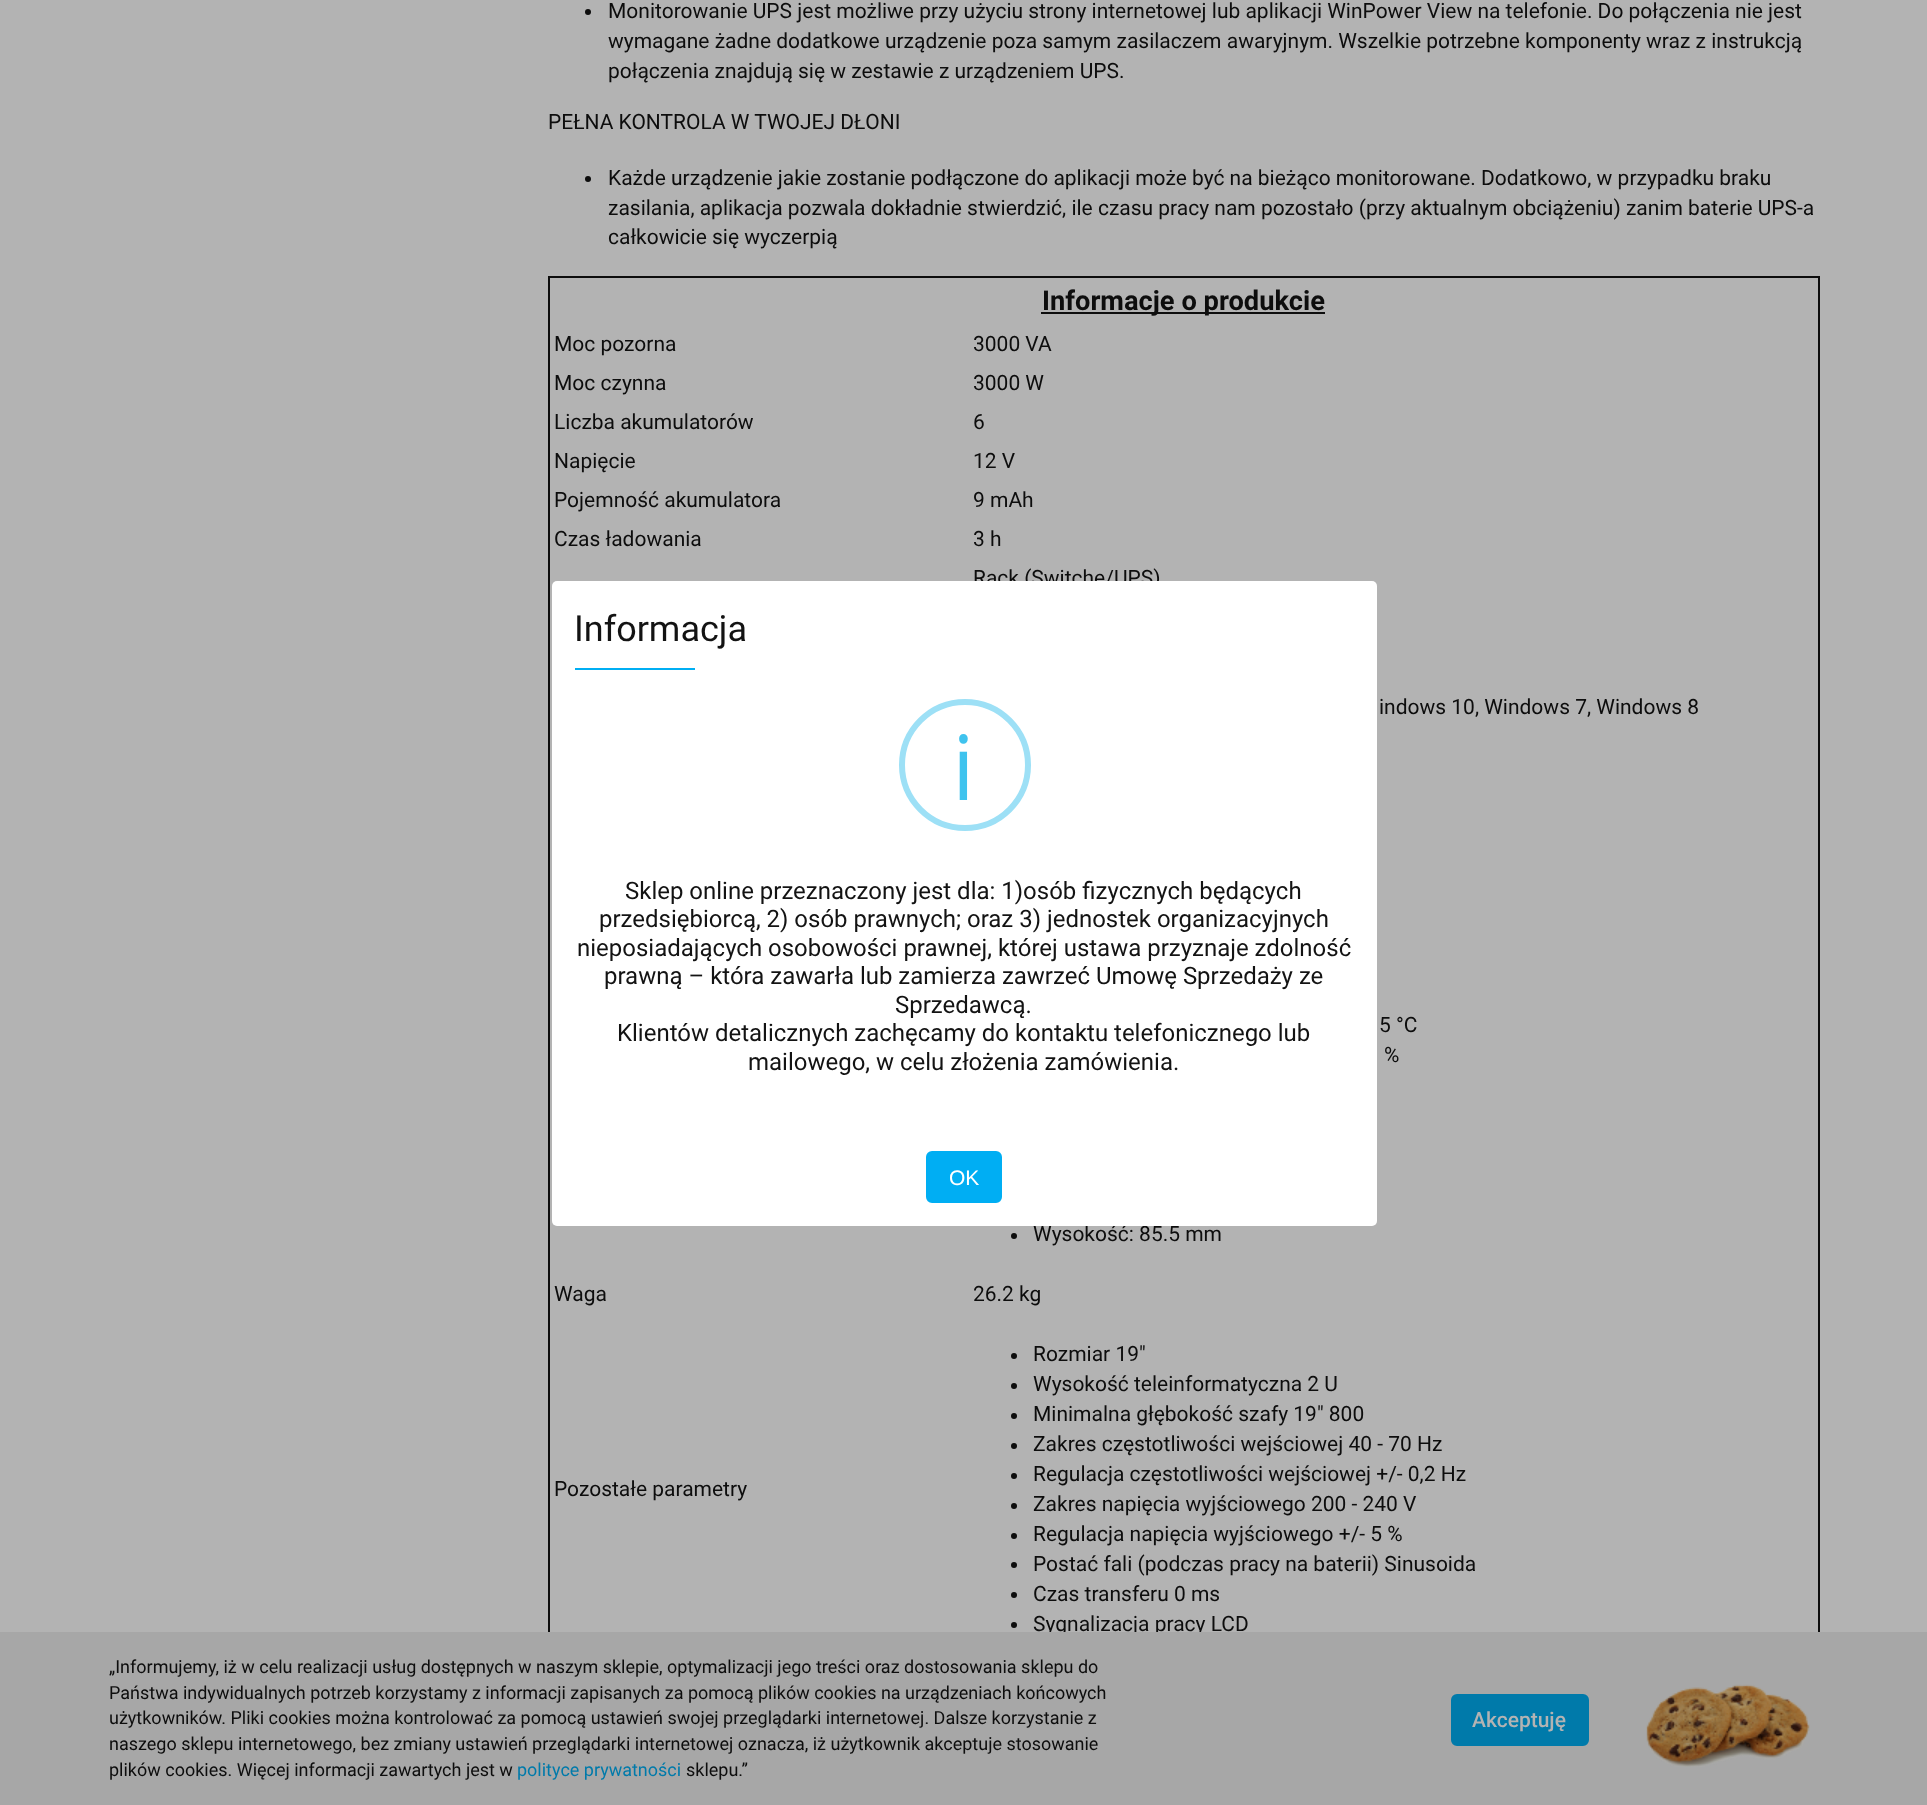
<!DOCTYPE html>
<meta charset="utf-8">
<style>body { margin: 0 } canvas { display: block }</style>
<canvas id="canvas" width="1927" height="1805"></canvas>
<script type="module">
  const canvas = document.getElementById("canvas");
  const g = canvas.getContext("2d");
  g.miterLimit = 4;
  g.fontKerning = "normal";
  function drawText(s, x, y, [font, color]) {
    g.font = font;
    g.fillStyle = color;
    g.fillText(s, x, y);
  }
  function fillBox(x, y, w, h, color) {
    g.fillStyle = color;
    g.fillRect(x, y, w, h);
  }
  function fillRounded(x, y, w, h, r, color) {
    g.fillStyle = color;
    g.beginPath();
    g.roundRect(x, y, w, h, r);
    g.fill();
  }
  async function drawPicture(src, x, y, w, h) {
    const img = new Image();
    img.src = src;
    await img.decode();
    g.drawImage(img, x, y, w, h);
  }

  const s1 = ["21px Roboto", "#0D0D0D"];
  const s2 = ["bold 27.25px Roboto", "#0D0D0D"];
  const s3 = ["36px Roboto", "#131313"];
  const s4 = ["90px Open Sans", "#3FC3EE"];
  const s5 = ["24px Roboto", "#131313"];
  const s6 = ["21px Liberation Sans", "#FFFFFF"];
  const s7 = ["18px Roboto", "#0D0D0D"];
  const s8 = ["18px Roboto", "#007AAA"];
  const s9 = ["500 21px Roboto", "#B3B3B3"];

  fillBox(0, 0, 1927, 1805, "#B3B3B3");
  g.fillStyle = "#0D0D0D";
  g.beginPath();
  g.arc(588, 12, 3, 0, Math.PI * 2);
  g.fill();
  drawText("Monitorowanie UPS jest możliwe przy użyciu strony internetowej lub aplikacji WinPower View na telefonie. Do połączenia nie jest", 608, 18, s1);
  drawText("wymagane żadne dodatkowe urządzenie poza samym zasilaczem awaryjnym. Wszelkie potrzebne komponenty wraz z instrukcją", 608, 48, s1);
  drawText("połączenia znajdują się w zestawie z urządzeniem UPS.", 608, 78, s1);
  drawText("PEŁNA KONTROLA W TWOJEJ DŁONI", 548, 129, s1);
  g.beginPath();
  g.arc(588, 179, 3, 0, Math.PI * 2);
  g.fill();
  drawText("Każde urządzenie jakie zostanie podłączone do aplikacji może być na bieżąco monitorowane. Dodatkowo, w przypadku braku", 608, 185, s1);
  drawText("zasilania, aplikacja pozwala dokładnie stwierdzić, ile czasu pracy nam pozostało (przy aktualnym obciążeniu) zanim baterie UPS-a", 608, 215, s1);
  drawText("całkowicie się wyczerpią", 608, 244, s1);
  fillBox(548, 276, 1272, 2, "#0D0D0D");
  fillBox(1818, 276, 2, 1356, "#0D0D0D");
  fillBox(548, 276, 2, 1356, "#0D0D0D");
  fillBox(1041, 312, 284, 2, "#0D0D0D");
  drawText("Informacje o produkcie", 1042, 310, s2);
  drawText("Moc pozorna", 554, 351, s1);
  drawText("3000 VA", 973, 351, s1);
  drawText("Moc czynna", 554, 390, s1);
  drawText("3000 W", 973, 390, s1);
  drawText("Liczba akumulatorów", 554, 429, s1);
  drawText("6", 973, 429, s1);
  drawText("Napięcie", 554, 468, s1);
  drawText("12 V", 973, 468, s1);
  drawText("Pojemność akumulatora", 554, 507, s1);
  drawText("9 mAh", 973, 507, s1);
  drawText("Czas ładowania", 554, 546, s1);
  drawText("3 h", 973, 546, s1);
  drawText("Rack (Switche/UPS)", 973, 585, s1);
  drawText("indows 10, Windows 7, Windows 8", 1379, 714, s1);
  drawText("5 °C", 1379, 1032, s1);
  drawText("%", 1384, 1062, s1);
  g.beginPath();
  g.arc(1014, 1236, 3, 0, Math.PI * 2);
  g.fill();
  drawText("Wysokość: 85.5 mm", 1033, 1241, s1);
  drawText("Waga", 554, 1301, s1);
  drawText("26.2 kg", 973, 1301, s1);
  drawText("Pozostałe parametry", 554, 1496, s1);
  g.beginPath();
  g.arc(1014, 1356, 3, 0, Math.PI * 2);
  g.fill();
  drawText("Rozmiar 19\"", 1033, 1361, s1);
  g.beginPath();
  g.arc(1014, 1386, 3, 0, Math.PI * 2);
  g.fill();
  drawText("Wysokość teleinformatyczna 2 U", 1033, 1391, s1);
  g.beginPath();
  g.arc(1014, 1416, 3, 0, Math.PI * 2);
  g.fill();
  drawText("Minimalna głębokość szafy 19\" 800", 1033, 1421, s1);
  g.beginPath();
  g.arc(1014, 1446, 3, 0, Math.PI * 2);
  g.fill();
  drawText("Zakres częstotliwości wejściowej 40 - 70 Hz", 1033, 1451, s1);
  g.beginPath();
  g.arc(1014, 1476, 3, 0, Math.PI * 2);
  g.fill();
  drawText("Regulacja częstotliwości wejściowej +/- 0,2 Hz", 1033, 1481, s1);
  g.beginPath();
  g.arc(1014, 1506, 3, 0, Math.PI * 2);
  g.fill();
  drawText("Zakres napięcia wyjściowego 200 - 240 V", 1033, 1511, s1);
  g.beginPath();
  g.arc(1014, 1536, 3, 0, Math.PI * 2);
  g.fill();
  drawText("Regulacja napięcia wyjściowego +/- 5 %", 1033, 1541, s1);
  g.beginPath();
  g.arc(1014, 1565, 3, 0, Math.PI * 2);
  g.fill();
  drawText("Postać fali (podczas pracy na baterii) Sinusoida", 1033, 1571, s1);
  g.beginPath();
  g.arc(1014, 1595, 3, 0, Math.PI * 2);
  g.fill();
  drawText("Czas transferu 0 ms", 1033, 1601, s1);
  g.beginPath();
  g.arc(1014, 1625, 3, 0, Math.PI * 2);
  g.fill();
  drawText("Sygnalizacja pracy LCD", 1033, 1631, s1);
  fillRounded(552, 581, 825, 645, 5, "#FFFFFF");
  drawText("Informacja", 574, 641, s3);
  fillBox(575, 668, 120, 2, "#00AEF3");
  g.beginPath();
  g.arc(965, 765, 63, 0, Math.PI * 2);
  g.strokeStyle = "#9DE0F6";
  g.lineWidth = 6;
  g.stroke();
  drawText("i", 952, 800, s4);
  drawText("Sklep online przeznaczony jest dla: 1)osób fizycznych będących", 625, 899, s5);
  drawText("przedsiębiorcą, 2) osób prawnych; oraz 3) jednostek organizacyjnych", 599, 927, s5);
  drawText("nieposiadających osobowości prawnej, której ustawa przyznaje zdolność", 577, 956, s5);
  drawText("prawną – która zawarła lub zamierza zawrzeć Umowę Sprzedaży ze", 604, 984, s5);
  drawText("Sprzedawcą.", 895, 1013, s5);
  drawText("Klientów detalicznych zachęcamy do kontaktu telefonicznego lub", 617, 1041, s5);
  drawText("mailowego, w celu złożenia zamówienia.", 748, 1070, s5);
  g.fillStyle = "#00AEF3";
  g.beginPath();
  g.roundRect(928.5, 1153.5, 71, 47, 3.5);
  g.fill();
  g.strokeStyle = "#00AEF3";
  g.lineWidth = 5;
  g.stroke();
  drawText("OK", 949, 1185, s6);
  fillBox(0, 1632, 1927, 173, "#A7A7A7");
  drawText("„Informujemy, iż w celu realizacji usług dostępnych w naszym sklepie, optymalizacji jego treści oraz dostosowania sklepu do", 109, 1673, s7);
  drawText("Państwa indywidualnych potrzeb korzystamy z informacji zapisanych za pomocą plików cookies na urządzeniach końcowych", 109, 1699, s7);
  drawText("użytkowników. Pliki cookies można kontrolować za pomocą ustawień swojej przeglądarki internetowej. Dalsze korzystanie z", 109, 1724, s7);
  drawText("naszego sklepu internetowego, bez zmiany ustawień przeglądarki internetowej oznacza, iż użytkownik akceptuje stosowanie", 109, 1750, s7);
  drawText("plików cookies. Więcej informacji zawartych jest w", 109, 1776, s7);
  drawText("polityce prywatności", 517, 1776, s8);
  drawText("sklepu.”", 686, 1776, s7);
  g.fillStyle = "#007AAA";
  g.beginPath();
  g.roundRect(1453.5, 1696.5, 133, 47, 3.5);
  g.fill();
  g.strokeStyle = "#007AAA";
  g.stroke();
  drawText("Akceptuję", 1472, 1727, s9);
  await drawPicture("pic1.png", 1646, 1684, 164, 83);
</script>
